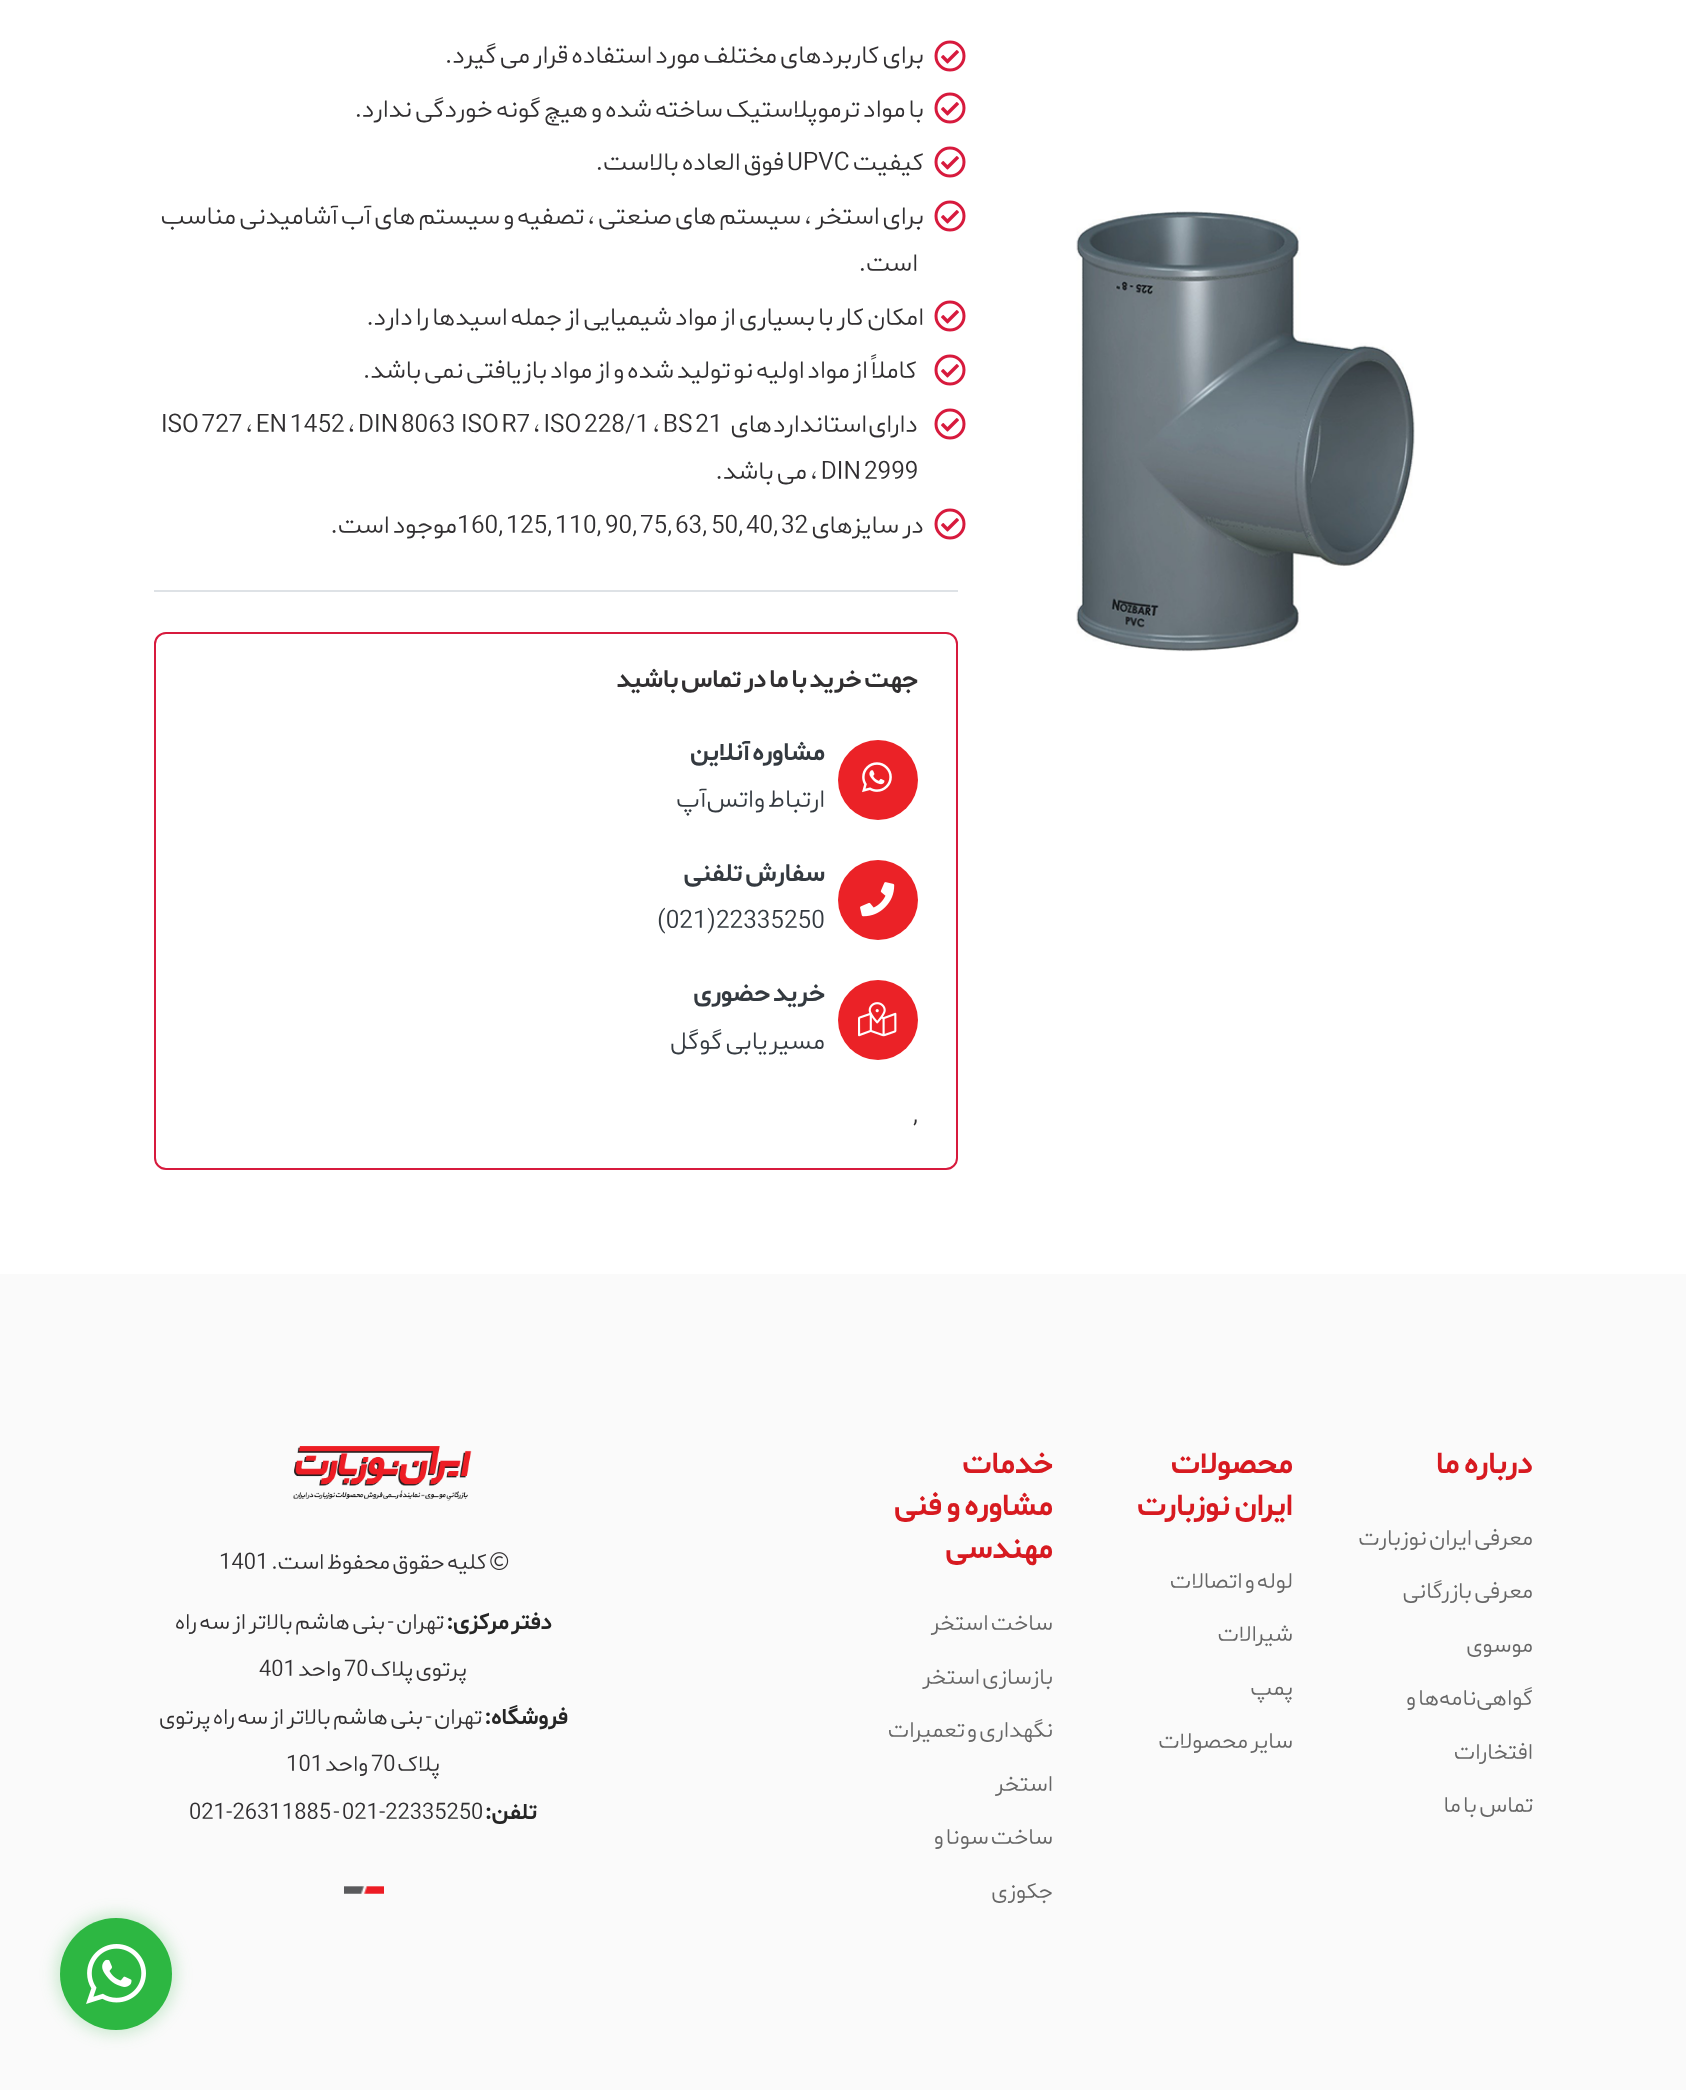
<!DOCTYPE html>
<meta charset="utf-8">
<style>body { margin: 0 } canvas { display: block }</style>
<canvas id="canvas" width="1686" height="2090"></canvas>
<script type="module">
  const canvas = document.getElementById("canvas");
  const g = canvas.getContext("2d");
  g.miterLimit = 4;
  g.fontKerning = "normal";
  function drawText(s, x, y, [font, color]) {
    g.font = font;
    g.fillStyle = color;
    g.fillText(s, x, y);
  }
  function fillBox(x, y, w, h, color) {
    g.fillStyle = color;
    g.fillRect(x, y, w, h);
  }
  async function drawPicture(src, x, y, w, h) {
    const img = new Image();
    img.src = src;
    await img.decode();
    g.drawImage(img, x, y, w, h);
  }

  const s1 = ["300 25.6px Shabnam", "#312F31"];
  const s2 = ["bold 25.6px Shabnam", "#312F31"];
  const s3 = ["bold 25.6px Shabnam", "#343A40"];
  const s4 = ["300 25.6px Shabnam", "#343A40"];
  const s5 = ["bold 31.25px Shabnam", "#D71A20"];
  const s6 = ["300 23px Shabnam", "#666666"];
  const s7 = ["300 23px Shabnam", "#312F31"];
  const s8 = ["bold 23px Shabnam", "#252525"];

  fillBox(0, 0, 1686, 2090, "#FFFFFF");
  await drawPicture("pic1.png", 1076, 211, 339, 441);
  fillBox(154, 590, 804, 2, "#DEE2E6");
  g.wordSpacing = "-4px";
  g.direction = "rtl";
  drawText("برای کاربردهای مختلف مورد استفاده قرار می گیرد.", 924, 63, s1);
  await drawPicture("pic2.png", 934, 40, 32, 32);
  drawText("با مواد ترموپلاستیک ساخته شده و هیچ گونه خوردگی ندارد.", 924, 117, s1);
  await drawPicture("pic3.png", 934, 92, 32, 32);
  await drawPicture("pic4.png", 934, 146, 32, 32);
  g.wordSpacing = "0px";
  drawText("کیفیت", 924, 170, s1);
  g.wordSpacing = "-4px";
  drawText("فوق العاده بالاست.", 784, 170, s1);
  g.wordSpacing = "0px";
  g.direction = "ltr";
  drawText("UPVC", 787, 170, s1);
  await drawPicture("pic4.png", 934, 200, 32, 32);
  g.wordSpacing = "-4px";
  g.direction = "rtl";
  drawText("برای استخر ، سیستم های صنعتی ، تصفیه و سیستم های آب آشامیدنی مناسب", 924, 224, s1);
  g.wordSpacing = "0px";
  drawText("است.", 918, 271, s1);
  g.wordSpacing = "-4px";
  drawText("امکان کار با بسیاری از مواد شیمیایی از جمله اسیدها را دارد.", 924, 325, s1);
  await drawPicture("pic5.png", 934, 300, 32, 32);
  await drawPicture("pic4.png", 934, 354, 32, 32);
  g.wordSpacing = "-4.25px";
  drawText("کاملاً از مواد اولیه نو تولید شده و از مواد بازیافتی نمی باشد.", 917, 378, s1);
  await drawPicture("pic4.png", 934, 408, 32, 32);
  g.wordSpacing = "-6px";
  drawText("دارای استاندارد های", 918, 432, s1);
  g.wordSpacing = "-4.25px";
  g.direction = "ltr";
  drawText("ISO 727 ، EN 1452 ، DIN 8063  ISO R7 ، ISO 228/1 ، BS 21", 161, 432, s1);
  g.wordSpacing = "-4px";
  drawText("، DIN 2999", 810, 479, s1);
  g.direction = "rtl";
  drawText("می باشد.", 807, 479, s1);
  await drawPicture("pic4.png", 934, 508, 32, 32);
  drawText("در سایزهای", 924, 533, s1);
  g.wordSpacing = "0px";
  g.direction = "ltr";
  drawText("32", 781, 533, s1);
  drawText("40,", 746, 533, s1);
  drawText("50,", 711, 533, s1);
  drawText("63,", 675, 533, s1);
  drawText("75,", 640, 533, s1);
  drawText("90,", 605, 533, s1);
  drawText("110,", 555, 533, s1);
  drawText("125,", 506, 533, s1);
  g.wordSpacing = "-4px";
  g.direction = "rtl";
  drawText("موجود است.", 457, 533, s1);
  g.wordSpacing = "0px";
  g.direction = "ltr";
  drawText("160,", 457, 533, s1);
  g.beginPath();
  g.roundRect(155, 633, 802, 536, 11);
  g.strokeStyle = "#D71A3D";
  g.lineWidth = 2;
  g.stroke();
  g.wordSpacing = "-4px";
  g.direction = "rtl";
  drawText("جهت خرید با ما در تماس باشید", 918, 687, s2);
  g.fillStyle = "#EB2227";
  g.beginPath();
  g.arc(878, 780, 40, 0, Math.PI * 2);
  g.fill();
  await drawPicture("pic6.png", 862, 762, 30, 31);
  drawText("مشاوره آنلاین", 825, 760, s3);
  drawText("ارتباط واتس‌آپ", 825, 807, s4);
  g.fillStyle = "#EB2227";
  g.beginPath();
  g.arc(878, 900, 40, 0, Math.PI * 2);
  g.fill();
  await drawPicture("pic7.png", 860, 882, 35, 35);
  drawText("سفارش تلفنی", 825, 881, s3);
  g.wordSpacing = "0px";
  g.direction = "ltr";
  drawText("(021)22335250", 657, 928, s4);
  g.fillStyle = "#EB2227";
  g.beginPath();
  g.arc(878, 1020, 40, 0, Math.PI * 2);
  g.fill();
  await drawPicture("pic8.png", 858, 1002, 39, 35);
  g.wordSpacing = "-4px";
  g.direction = "rtl";
  drawText("خرید حضوری", 825, 1001, s3);
  drawText("مسیریابی گوگل", 825, 1049, s4);
  g.wordSpacing = "0px";
  g.direction = "ltr";
  drawText(",", 913, 1122, s1);
  fillBox(0, 1274, 1686, 816, "#FAFAFA");
  g.wordSpacing = "-4px";
  g.direction = "rtl";
  drawText("درباره ما", 1533, 1473, s5);
  drawText("معرفی ایران نوزبارت", 1533, 1545, s6);
  drawText("معرفی بازرگانی", 1533, 1598, s6);
  g.wordSpacing = "0px";
  drawText("موسوی", 1533, 1652, s6);
  g.wordSpacing = "-4px";
  drawText("گواهی‌نامه‌ها و", 1533, 1705, s6);
  g.wordSpacing = "0px";
  drawText("افتخارات", 1533, 1759, s6);
  g.wordSpacing = "-4px";
  drawText("تماس با ما", 1533, 1812, s6);
  g.wordSpacing = "0px";
  drawText("محصولات", 1293, 1473, s5);
  g.wordSpacing = "-4px";
  drawText("ایران نوزبارت", 1293, 1515, s5);
  drawText("لوله و اتصالات", 1293, 1588, s6);
  g.wordSpacing = "0px";
  drawText("شیرالات", 1293, 1641, s6);
  drawText("پمپ", 1293, 1695, s6);
  g.wordSpacing = "-4px";
  drawText("سایر محصولات", 1293, 1748, s6);
  g.wordSpacing = "0px";
  drawText("خدمات", 1053, 1473, s5);
  g.wordSpacing = "-4px";
  drawText("مشاوره و فنی", 1053, 1515, s5);
  g.wordSpacing = "0px";
  drawText("مهندسی", 1053, 1558, s5);
  g.wordSpacing = "-4px";
  drawText("ساخت استخر", 1053, 1630, s6);
  drawText("بازسازی استخر", 1053, 1684, s6);
  drawText("نگهداری و تعمیرات", 1053, 1737, s6);
  g.wordSpacing = "0px";
  drawText("استخر", 1053, 1791, s6);
  g.wordSpacing = "-4px";
  drawText("ساخت سونا و", 1053, 1844, s6);
  g.wordSpacing = "0px";
  drawText("جکوزی", 1053, 1898, s6);
  await drawPicture("pic9.png", 293, 1446, 179, 55);
  await drawPicture("pic10.png", 490, 1552, 19, 18);
  g.wordSpacing = "-4px";
  drawText("کلیه حقوق محفوظ است.", 487, 1569, s7);
  g.wordSpacing = "0px";
  g.direction = "ltr";
  drawText("1401", 219, 1569, s7);
  g.wordSpacing = "-4px";
  g.direction = "rtl";
  drawText("دفتر مرکزی:", 552, 1629, s8);
  drawText("تهران - بنی هاشم بالاتر از سه راه", 444, 1629, s7);
  drawText("پرتوی پلاک", 467, 1676, s7);
  g.wordSpacing = "0px";
  g.direction = "ltr";
  drawText("70", 344, 1676, s7);
  g.direction = "rtl";
  drawText("واحد", 341, 1676, s7);
  g.direction = "ltr";
  drawText("401", 259, 1676, s7);
  g.direction = "rtl";
  drawText("فروشگاه:", 568, 1724, s8);
  g.wordSpacing = "-4px";
  drawText("تهران - بنی هاشم بالاتر از سه راه پرتوی", 482, 1724, s7);
  g.wordSpacing = "0px";
  drawText("پلاک", 440, 1771, s7);
  g.direction = "ltr";
  drawText("70", 371, 1771, s7);
  g.direction = "rtl";
  drawText("واحد", 368, 1771, s7);
  g.direction = "ltr";
  drawText("101", 286, 1771, s7);
  g.direction = "rtl";
  drawText("تلفن:", 537, 1819, s8);
  g.wordSpacing = "-4px";
  g.direction = "ltr";
  drawText("021-26311885 - 021-22335250", 189, 1819, s7);
  await drawPicture("pic11.png", 344, 1886, 40, 8);
  g.fillStyle = "rgba(45, 183, 66, 0.23)";
  g.filter = "blur(8px)";
  g.beginPath();
  g.roundRect(56, 1914, 120, 120, 60);
  g.fill();
  g.filter = "none";
  g.fillStyle = "#2DB742";
  g.beginPath();
  g.arc(116, 1974, 56, 0, Math.PI * 2);
  g.fill();
  await drawPicture("pic12.png", 86, 1944, 60, 60);
</script>
